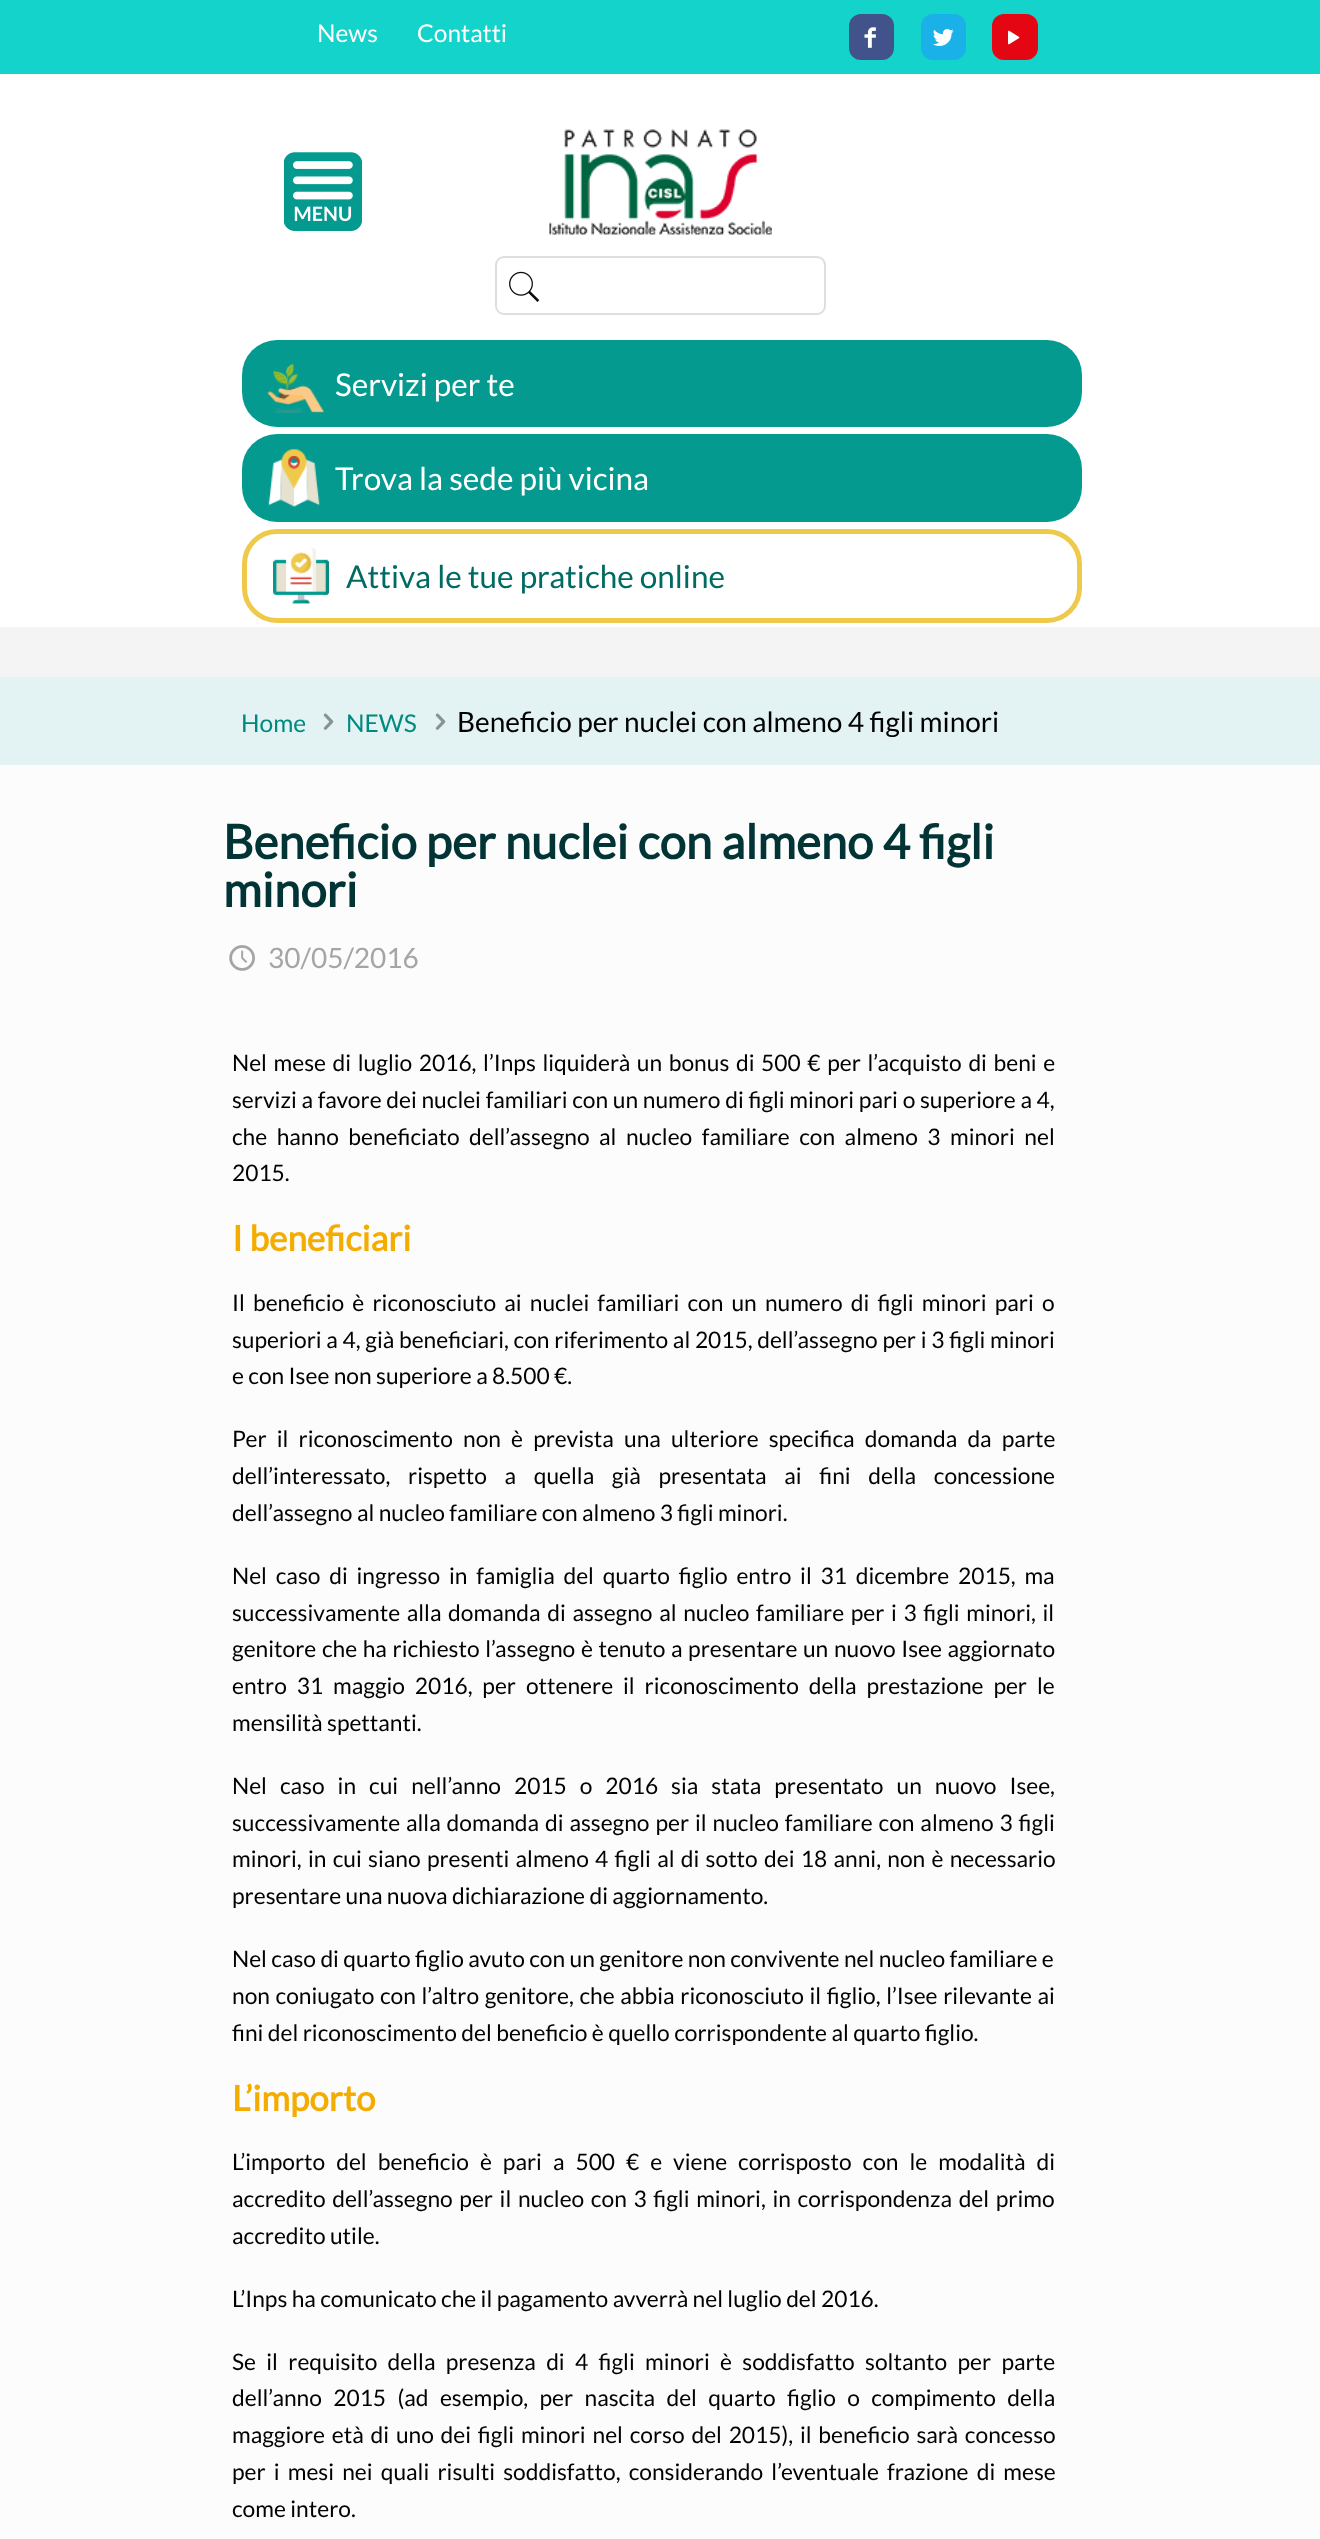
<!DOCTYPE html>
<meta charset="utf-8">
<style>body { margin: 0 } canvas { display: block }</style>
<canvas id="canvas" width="1320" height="2539"></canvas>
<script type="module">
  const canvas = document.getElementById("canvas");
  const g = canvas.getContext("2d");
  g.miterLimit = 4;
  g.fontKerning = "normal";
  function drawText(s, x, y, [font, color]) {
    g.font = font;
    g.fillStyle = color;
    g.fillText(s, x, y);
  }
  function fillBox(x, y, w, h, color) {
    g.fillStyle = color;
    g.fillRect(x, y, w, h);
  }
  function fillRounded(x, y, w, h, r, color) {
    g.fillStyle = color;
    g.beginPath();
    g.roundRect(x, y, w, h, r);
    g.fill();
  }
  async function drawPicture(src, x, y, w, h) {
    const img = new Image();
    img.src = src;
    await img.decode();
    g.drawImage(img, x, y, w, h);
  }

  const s1 = ["24.5px Lato", "#FFFFFF"];
  const s2 = ["31.5px Lato", "#FFFFFF"];
  const s3 = ["31.5px Lato", "#006B63"];
  const s4 = ["24.5px Lato", "#02897F"];
  const s5 = ["28px Lato", "#000000"];
  const s6 = ["bold 47.25px Lato", "#023436"];
  const s7 = ["28px Lato", "#A5A5A5"];
  const s8 = ["22.75px Lato", "#000000"];
  const s9 = ["bold 35px Lato", "#F5AC00"];

  fillBox(0, 0, 1320, 2539, "#FCFCFC");
  fillBox(0, 0, 1320, 74, "#13D3CA");
  drawText("News", 317, 42, s1);
  drawText("Contatti", 417, 42, s1);
  fillRounded(849, 14, 45, 46, 12, "#42538B");
  await drawPicture("pic1.png", 864, 27, 12, 21);
  fillRounded(921, 14, 45, 46, 12, "#1AB1E8");
  await drawPicture("pic2.png", 933, 29, 21, 17);
  fillRounded(992, 14, 46, 46, 12, "#E40613");
  await drawPicture("pic3.png", 1008, 30, 12, 15);
  fillBox(0, 627, 1320, 50, "#F4F4F4");
  fillBox(0, 74, 1320, 553, "#FFFFFF");
  await drawPicture("pic4.png", 284, 152, 78, 79);
  await drawPicture("pic5.png", 549, 129, 223, 106);
  g.beginPath();
  g.roundRect(496, 257, 329, 57, 8);
  g.strokeStyle = "#DEDEDE";
  g.lineWidth = 2;
  g.stroke();
  await drawPicture("pic6.png", 509, 271, 31, 31);
  fillRounded(242, 340, 840, 87, 35, "#049A8F");
  await drawPicture("pic7.png", 267, 363, 57, 50);
  drawText("Servizi per te", 335, 396, s2);
  fillRounded(242, 434, 840, 88, 35, "#049A8F");
  await drawPicture("pic8.png", 268, 449, 52, 58);
  drawText("Trova la sede più vicina", 335, 490, s2);
  g.beginPath();
  g.roundRect(244.5, 531.5, 835, 89, 32.5);
  g.strokeStyle = "#EFC94A";
  g.lineWidth = 5;
  g.stroke();
  await drawPicture("pic9.png", 273, 548, 56, 56);
  drawText("Attiva le tue pratiche online", 346, 588, s3);
  fillBox(0, 677, 1320, 88, "#E3F3F3");
  drawText("Home", 241, 732, s4);
  await drawPicture("pic10.png", 323, 713, 11, 17);
  drawText("NEWS", 346, 732, s4);
  await drawPicture("pic10.png", 435, 713, 11, 17);
  drawText("Beneficio per nuclei con almeno 4 figli minori", 457, 732, s5);
  drawText("Beneficio per nuclei con almeno 4 figli", 223, 859, s6);
  drawText("minori", 223, 907, s6);
  await drawPicture("pic11.png", 229, 945, 26, 26);
  drawText("30/05/2016", 268, 968, s7);
  g.wordSpacing = "2.25px";
  drawText("Nel mese di luglio 2016, l’Inps liquiderà un bonus di 500 € per l’acquisto di beni e", 232, 1071, s8);
  g.wordSpacing = "0.3px";
  drawText("servizi a favore dei nuclei familiari con un numero di figli minori pari o superiore a 4,", 232, 1108, s8);
  g.wordSpacing = "5.1px";
  drawText("che hanno beneficiato dell’assegno al nucleo familiare con almeno 3 minori nel", 232, 1145, s8);
  g.wordSpacing = "0px";
  drawText("2015.", 232, 1181, s8);
  drawText("I beneficiari", 232, 1251, s9);
  g.wordSpacing = "3.75px";
  drawText("Il beneficio è riconosciuto ai nuclei familiari con un numero di figli minori pari o", 232, 1311, s8);
  g.wordSpacing = "0.3px";
  drawText("superiori a 4, già beneficiari, con riferimento al 2015, dell’assegno per i 3 figli minori", 232, 1348, s8);
  g.wordSpacing = "0px";
  drawText("e con Isee non superiore a 8.500 €.", 232, 1384, s8);
  g.wordSpacing = "5.75px";
  drawText("Per il riconoscimento non è prevista una ulteriore specifica domanda da parte", 232, 1447, s8);
  g.wordSpacing = "13.25px";
  drawText("dell’interessato, rispetto a quella già presentata ai fini della concessione", 232, 1484, s8);
  g.wordSpacing = "0px";
  drawText("dell’assegno al nucleo familiare con almeno 3 figli minori.", 232, 1521, s8);
  g.wordSpacing = "4.4px";
  drawText("Nel caso di ingresso in famiglia del quarto figlio entro il 31 dicembre 2015, ma", 232, 1584, s8);
  g.wordSpacing = "2.25px";
  drawText("successivamente alla domanda di assegno al nucleo familiare per i 3 figli minori, il", 232, 1621, s8);
  g.wordSpacing = "1.25px";
  drawText("genitore che ha richiesto l’assegno è tenuto a presentare un nuovo Isee aggiornato", 232, 1657, s8);
  g.wordSpacing = "5.5px";
  drawText("entro 31 maggio 2016, per ottenere il riconoscimento della prestazione per le", 232, 1694, s8);
  g.wordSpacing = "0px";
  drawText("mensilità spettanti.", 232, 1731, s8);
  g.wordSpacing = "8.6px";
  drawText("Nel caso in cui nell’anno 2015 o 2016 sia stata presentato un nuovo Isee,", 232, 1794, s8);
  g.wordSpacing = "1.5px";
  drawText("successivamente alla domanda di assegno per il nucleo familiare con almeno 3 figli", 232, 1831, s8);
  g.wordSpacing = "1.9px";
  drawText("minori, in cui siano presenti almeno 4 figli al di sotto dei 18 anni, non è necessario", 232, 1867, s8);
  g.wordSpacing = "0px";
  drawText("presentare una nuova dichiarazione di aggiornamento.", 232, 1904, s8);
  drawText("Nel caso di quarto figlio avuto con un genitore non convivente nel nucleo familiare e", 232, 1967, s8);
  g.wordSpacing = "1.25px";
  drawText("non coniugato con l’altro genitore, che abbia riconosciuto il figlio, l’Isee rilevante ai", 232, 2004, s8);
  g.wordSpacing = "0px";
  drawText("fini del riconoscimento del beneficio è quello corrispondente al quarto figlio.", 232, 2041, s8);
  drawText("L’importo", 232, 2111, s9);
  g.wordSpacing = "6.6px";
  drawText("L’importo del beneficio è pari a 500 € e viene corrisposto con le modalità di", 232, 2170, s8);
  g.wordSpacing = "2.25px";
  drawText("accredito dell’assegno per il nucleo con 3 figli minori, in corrispondenza del primo", 232, 2207, s8);
  g.wordSpacing = "0px";
  drawText("accredito utile.", 232, 2244, s8);
  drawText("L’Inps ha comunicato che il pagamento avverrà nel luglio del 2016.", 232, 2307, s8);
  g.wordSpacing = "5.9px";
  drawText("Se il requisito della presenza di 4 figli minori è soddisfatto soltanto per parte", 232, 2370, s8);
  g.wordSpacing = "7px";
  drawText("dell’anno 2015 (ad esempio, per nascita del quarto figlio o compimento della", 232, 2406, s8);
  g.wordSpacing = "2.4px";
  drawText("maggiore età di uno dei figli minori nel corso del 2015), il beneficio sarà concesso", 232, 2443, s8);
  g.wordSpacing = "3.75px";
  drawText("per i mesi nei quali risulti soddisfatto, considerando l’eventuale frazione di mese", 232, 2480, s8);
  g.wordSpacing = "0px";
  drawText("come intero.", 232, 2517, s8);
</script>
